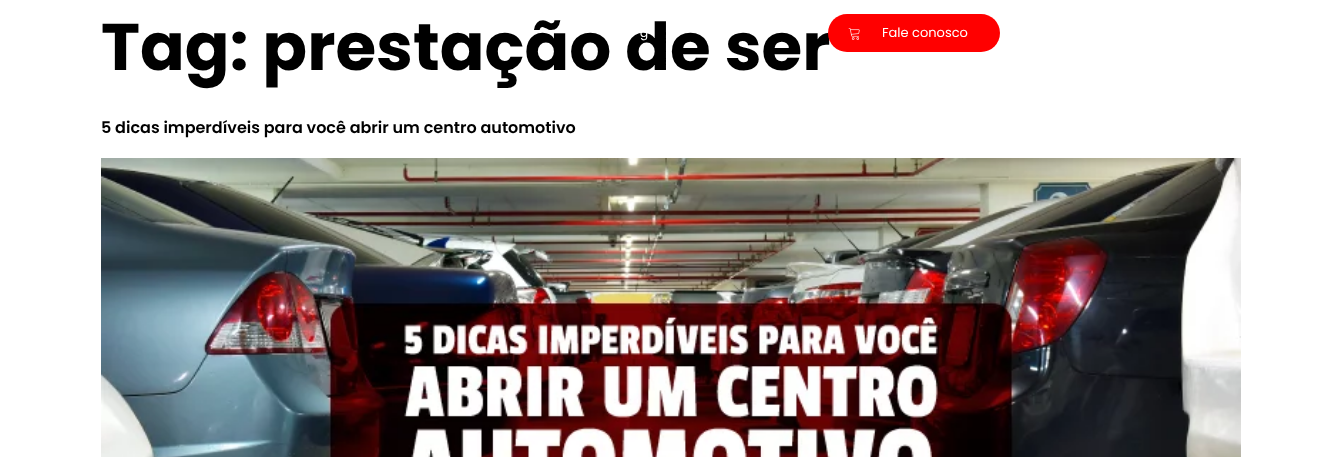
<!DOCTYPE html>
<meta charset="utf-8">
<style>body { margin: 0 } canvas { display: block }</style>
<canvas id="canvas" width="1342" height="457"></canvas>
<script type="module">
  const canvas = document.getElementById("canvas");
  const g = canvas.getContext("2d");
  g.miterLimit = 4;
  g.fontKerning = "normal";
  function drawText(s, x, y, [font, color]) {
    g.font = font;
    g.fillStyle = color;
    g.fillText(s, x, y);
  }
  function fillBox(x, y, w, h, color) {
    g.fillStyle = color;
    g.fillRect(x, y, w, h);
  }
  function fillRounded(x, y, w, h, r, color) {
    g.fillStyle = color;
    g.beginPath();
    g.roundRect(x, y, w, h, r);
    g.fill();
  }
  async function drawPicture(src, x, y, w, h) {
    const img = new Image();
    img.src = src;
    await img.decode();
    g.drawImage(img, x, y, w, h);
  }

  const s1 = ["bold 66px Poppins", "#000000"];
  const s2 = ["600 16px Poppins", "#000000"];
  const s3 = ["12px Poppins", "#FFFFFF"];
  const s4 = ["13px Poppins", "#FFFFFF"];

  fillBox(0, 0, 1342, 457, "#FFFFFF");
  drawText("Tag: prestação de ser", 101, 70, s1);
  drawText("5 dicas imperdíveis para você abrir um centro automotivo", 101, 133, s2);
  await drawPicture("pic1.png", 101, 158, 1140, 299);
  g.letterSpacing = "1px";
  drawText("g", 640, 37, s3);
  fillRounded(828, 14, 172, 38, 19, "#FF0000");
  await drawPicture("pic2.png", 848, 28, 12, 12);
  g.letterSpacing = "0px";
  drawText("Fale conosco", 882, 37, s4);
</script>
